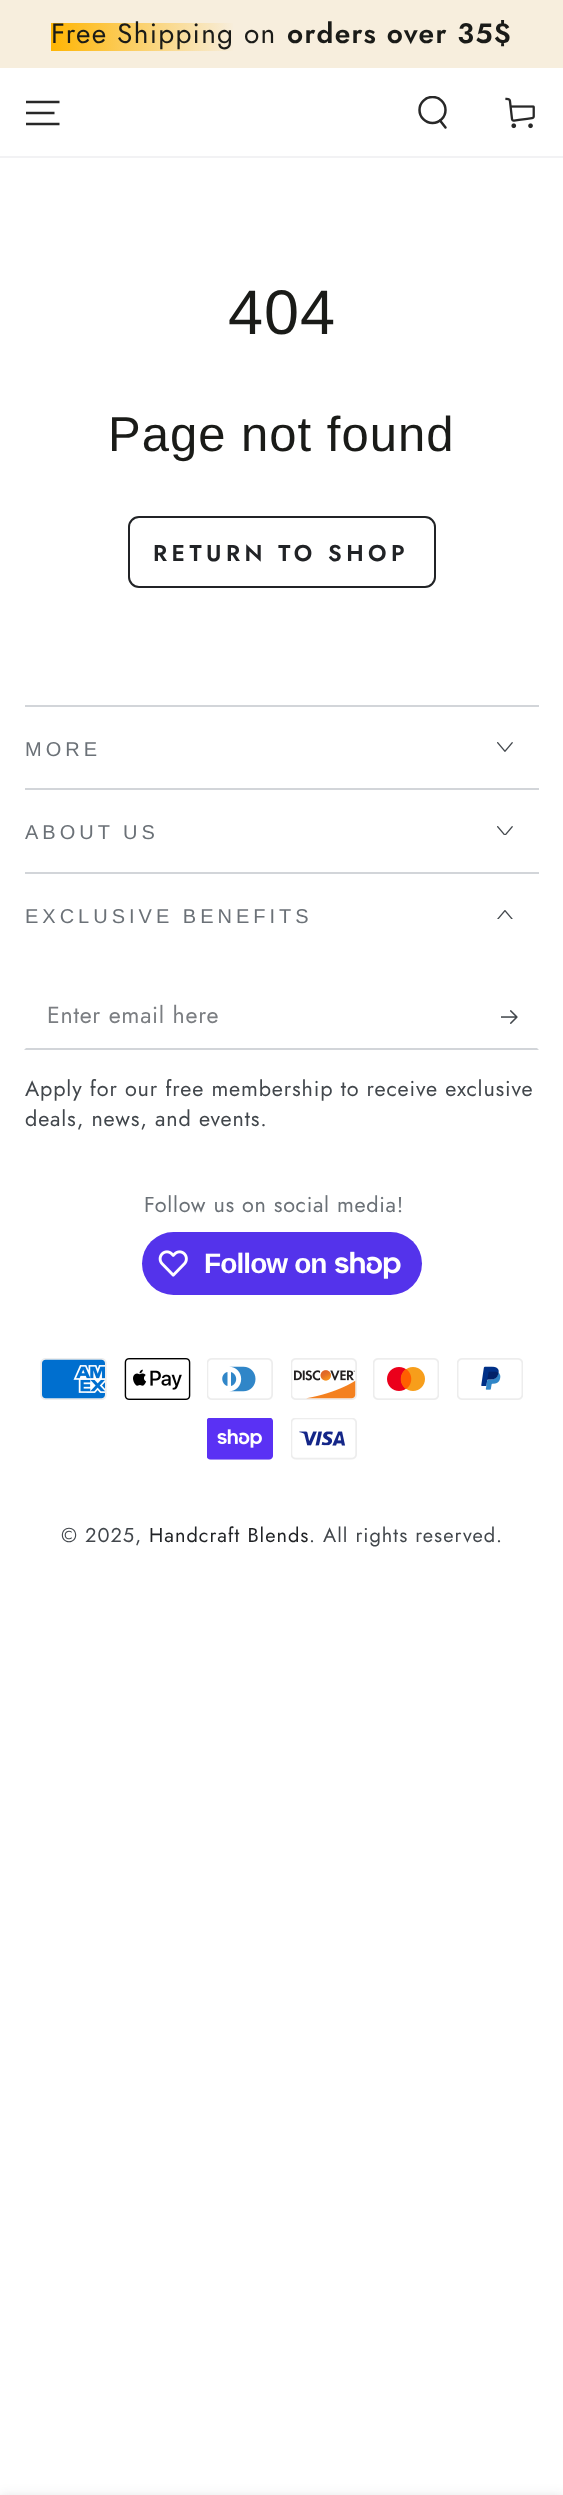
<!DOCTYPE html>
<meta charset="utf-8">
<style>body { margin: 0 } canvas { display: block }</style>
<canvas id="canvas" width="563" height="2495"></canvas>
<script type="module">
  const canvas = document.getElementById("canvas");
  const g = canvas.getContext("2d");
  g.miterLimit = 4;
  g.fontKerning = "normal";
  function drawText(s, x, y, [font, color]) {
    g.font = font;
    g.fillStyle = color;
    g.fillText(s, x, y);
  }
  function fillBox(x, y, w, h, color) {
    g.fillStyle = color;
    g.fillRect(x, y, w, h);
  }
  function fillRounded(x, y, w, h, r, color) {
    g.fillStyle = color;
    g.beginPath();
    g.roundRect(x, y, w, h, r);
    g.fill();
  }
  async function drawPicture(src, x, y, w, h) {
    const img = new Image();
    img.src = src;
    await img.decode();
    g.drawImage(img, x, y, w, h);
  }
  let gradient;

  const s1 = ["28px Jost", "#1A1B18"];
  const s2 = ["600 28px Jost", "#1A1B18"];
  const s3 = ["63px Liberation Sans", "#1A1B18"];
  const s4 = ["49px Liberation Sans", "#1A1B18"];
  const s5 = ["600 22.75px Jost", "#212326"];
  const s6 = ["20px Liberation Sans", "#6B7177"];
  const s7 = ["23.25px Jost", "#7B7E82"];
  const s8 = ["21.6px Jost", "#42474C"];
  const s9 = ["21.6px Jost", "#6B7177"];
  const s10 = ["bold 28px Liberation Sans", "#FFFFFF"];
  const s11 = ["20px Jost", "#42474C"];
  const s12 = ["20px Jost", "#212326"];

  fillBox(0, 0, 563, 2495, "#FFFFFF");
  fillBox(0, 0, 563, 68, "#F7EEDD");
  gradient = g.createLinearGradient(51, 36, 235, 36);
  gradient.addColorStop(0, "#FFB503");
  gradient.addColorStop(1, "#F7EEDD");
  g.fillStyle = gradient;
  g.fillRect(51, 23, 182, 28);
  g.letterSpacing = "1.25px";
  drawText("Free Shipping", 51, 43, s1);
  drawText("on", 244, 43, s1);
  drawText("orders over 35$", 287, 43, s2);
  g.fillStyle = "#F2F2F4";
  g.beginPath();
  g.moveTo(0, 156);
  g.lineTo(0, 158);
  g.lineTo(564, 158);
  g.lineTo(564, 70);
  g.lineTo(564, 156);
  g.closePath();
  g.fill();
  g.beginPath();
  g.moveTo(26, 124);
  g.lineTo(59.5, 124);
  g.moveTo(26, 113);
  g.lineTo(54.5, 113);
  g.moveTo(26, 102);
  g.lineTo(59.5, 102);
  g.strokeStyle = "#282828";
  g.lineWidth = 2.3;
  g.stroke();
  g.save();
  g.beginPath();
  g.rect(417, 96, 33, 34);
  g.clip();
  g.beginPath();
  g.arc(432.5, 110, 13, 0, Math.PI * 2);
  g.lineWidth = 2.5;
  g.stroke();
  g.restore();
  g.beginPath();
  g.moveTo(440, 120.5);
  g.lineTo(445.5, 127.5);
  g.lineWidth = 2.5;
  g.lineCap = "round";
  g.stroke();
  await drawPicture("pic1.png", 505, 97, 30, 32);
  g.letterSpacing = "1px";
  drawText("404", 228, 334, s3);
  drawText("Page not found", 108, 451, s4);
  g.beginPath();
  g.roundRect(129, 517, 306, 70, 10);
  g.strokeStyle = "#212326";
  g.lineWidth = 2;
  g.stroke();
  g.letterSpacing = "4.5px";
  drawText("RETURN TO SHOP", 153, 561, s5);
  fillBox(25, 705, 514, 2, "#D2D5D9");
  fillBox(25, 788, 514, 2, "#D2D5D9");
  g.letterSpacing = "4px";
  drawText("MORE", 25, 756, s6);
  await drawPicture("pic2.png", 497, 742, 16, 10);
  fillBox(25, 872, 514, 2, "#D2D5D9");
  drawText("ABOUT US", 25, 839, s6);
  await drawPicture("pic3.png", 497, 826, 16, 9);
  drawText("EXCLUSIVE BENEFITS", 25, 923, s6);
  await drawPicture("pic4.png", 497, 910, 16, 9);
  g.fillStyle = "#D2D5D9";
  g.beginPath();
  g.moveTo(539, 1050);
  g.lineTo(24, 1050);
  g.lineTo(26, 1048);
  g.lineTo(537, 1048);
  g.closePath();
  g.fill();
  g.letterSpacing = "0.7px";
  drawText("Enter email here", 47, 1023, s7);
  await drawPicture("pic5.png", 501, 1010, 17, 14);
  g.letterSpacing = "0.83px";
  drawText("Apply for our free membership to receive exclusive", 25, 1096, s8);
  drawText("deals, news, and events.", 25, 1126, s8);
  g.letterSpacing = "0.7px";
  drawText("Follow us on social media!", 144, 1212, s9);
  fillRounded(142, 1232, 280, 63, 31.5, "#5433EB");
  await drawPicture("pic6.png", 158, 1250, 30, 27);
  g.letterSpacing = "-0.9px";
  drawText("Follow on", 204, 1273, s10);
  await drawPicture("pic7.png", 335, 1251, 66, 28);
  await drawPicture("pic8.png", 40, 1358, 67, 42);
  await drawPicture("pic9.png", 124, 1358, 67, 42);
  await drawPicture("pic10.png", 207, 1358, 66, 42);
  await drawPicture("pic11.png", 291, 1358, 66, 42);
  await drawPicture("pic12.png", 373, 1358, 66, 42);
  await drawPicture("pic13.png", 457, 1358, 66, 42);
  await drawPicture("pic14.png", 207, 1418, 66, 42);
  await drawPicture("pic15.png", 291, 1418, 66, 42);
  g.letterSpacing = "1px";
  drawText("© 2025,", 61, 1542, s11);
  drawText("Handcraft Blends", 149, 1542, s12);
  drawText(". All rights reserved.", 309, 1542, s11);
  g.fillStyle = "rgba(33, 35, 38, 0.15)";
  g.filter = "blur(6.5px)";
  g.beginPath();
  g.rect(0, 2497, 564, 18);
  g.fill();
  g.filter = "none";
</script>
